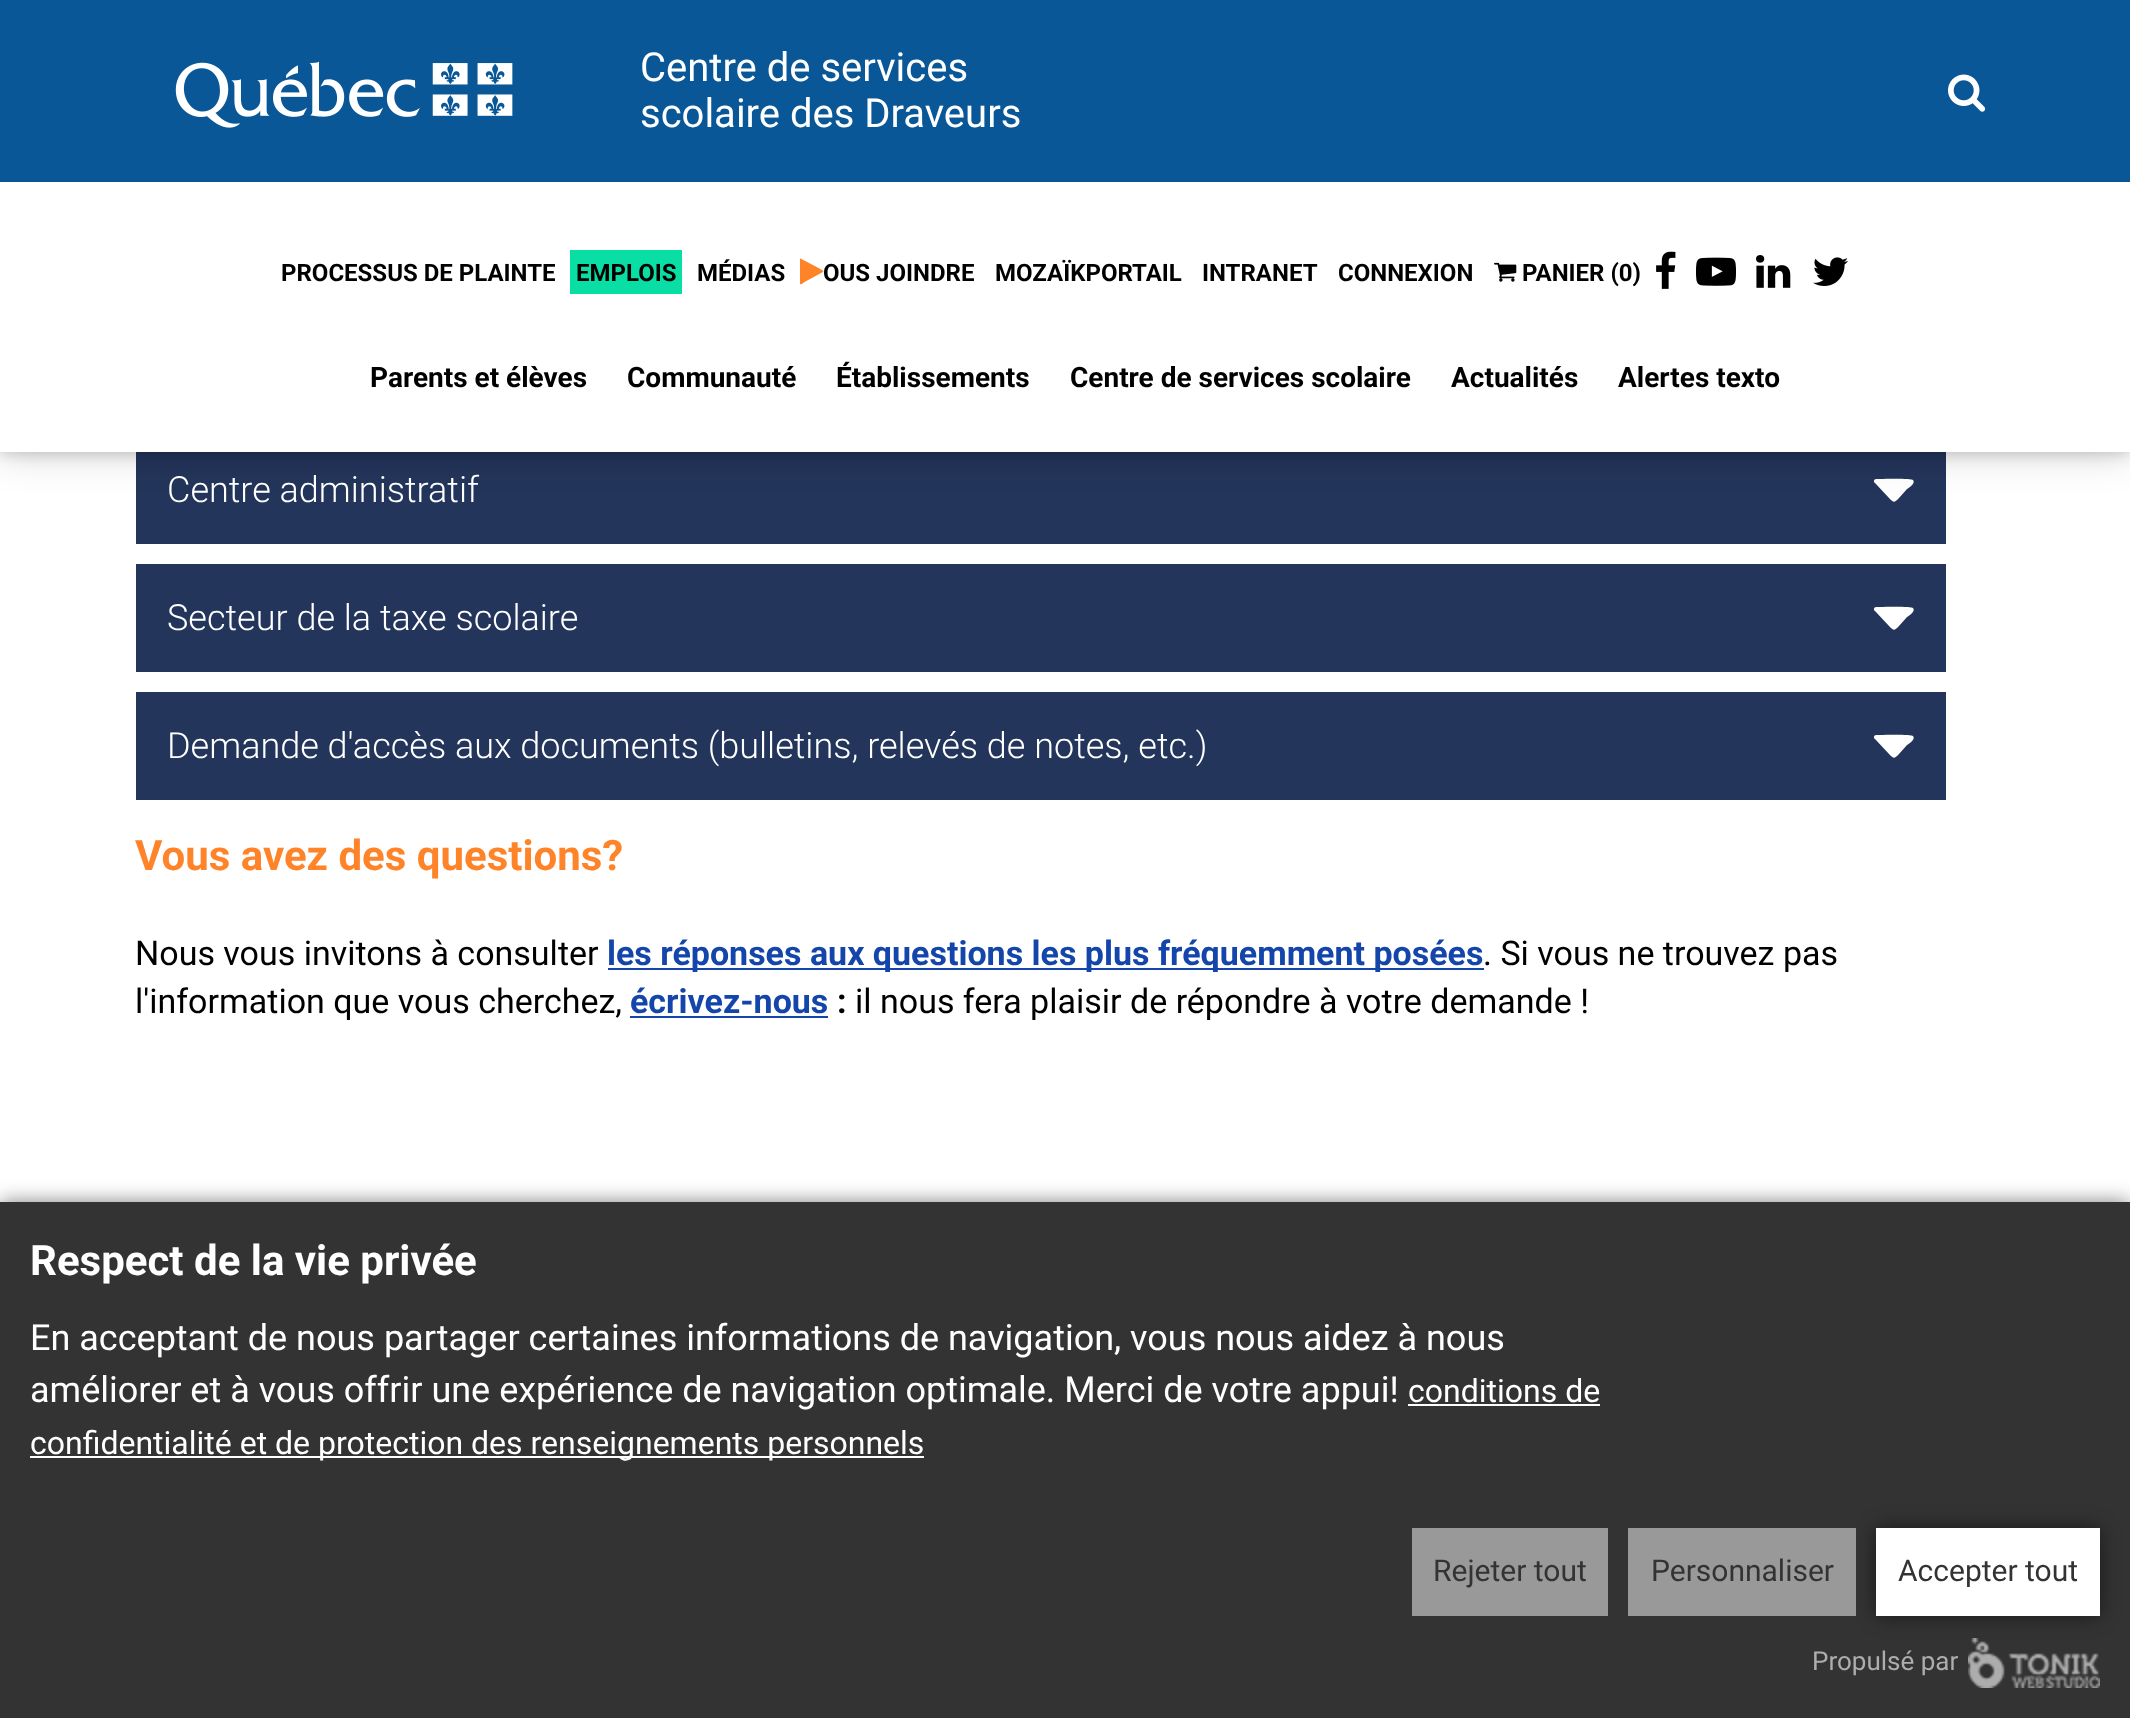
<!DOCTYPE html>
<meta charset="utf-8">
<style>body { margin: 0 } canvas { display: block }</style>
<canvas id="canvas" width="2130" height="1718"></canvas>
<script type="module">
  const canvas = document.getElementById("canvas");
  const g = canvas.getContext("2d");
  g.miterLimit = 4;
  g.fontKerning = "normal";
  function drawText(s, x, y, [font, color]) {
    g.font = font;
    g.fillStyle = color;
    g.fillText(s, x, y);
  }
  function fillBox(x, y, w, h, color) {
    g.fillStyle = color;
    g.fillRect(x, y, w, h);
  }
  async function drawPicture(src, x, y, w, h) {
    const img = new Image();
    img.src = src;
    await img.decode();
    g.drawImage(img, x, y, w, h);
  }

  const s1 = ["40px Roboto", "#FFFFFF"];
  const s2 = ["bold 24px Roboto", "#000000"];
  const s3 = ["bold 28px Roboto", "#000000"];
  const s4 = ["300 36px Roboto", "#FFFFFF"];
  const s5 = ["bold 42px Roboto", "#FF8429"];
  const s6 = ["34px Roboto", "#000000"];
  const s7 = ["bold 34px Roboto", "#1345AA"];
  const s8 = ["bold 34px Roboto", "#000000"];
  const s9 = ["bold 42px Roboto", "#FFFFFF"];
  const s10 = ["36px Roboto", "#FFFFFF"];
  const s11 = ["32px Roboto", "#FFFFFF"];
  const s12 = ["30px Roboto", "#333333"];
  const s13 = ["26px Roboto", "#ADADAD"];

  fillBox(0, 0, 2130, 1718, "#FFFFFF");
  g.strokeStyle = "#24355B";
  g.lineWidth = 2;
  g.strokeRect(137, 437, 1808, 106);
  fillBox(138, 452, 1806, 90, "#24355B");
  g.fillStyle = "#FFFFFF";
  g.beginPath();
  g.moveTo(1913, 480);
  g.bezierCurveTo(1916, 483, 1909, 488, 1907, 489);
  g.lineTo(1899, 498);
  g.bezierCurveTo(1894, 503, 1894, 503, 1889, 498);
  g.lineTo(1875, 483);
  g.bezierCurveTo(1873, 482, 1874, 479, 1876, 479);
  g.bezierCurveTo(1880, 479, 1912, 478, 1913, 480);
  g.closePath();
  g.fill();
  g.fillStyle = "rgba(0, 0, 0, 0.19)";
  g.filter = "blur(20px)";
  g.beginPath();
  g.rect(0, 0, 2130, 452);
  g.fill();
  g.filter = "none";
  g.fillStyle = "rgba(0, 0, 0, 0.2)";
  g.filter = "blur(8px)";
  g.beginPath();
  g.rect(0, 0, 2130, 452);
  g.fill();
  g.filter = "none";
  fillBox(0, 182, 2130, 270, "#FFFFFF");
  fillBox(0, 0, 2130, 182, "#095797");
  await drawPicture("pic1.png", 175, 61, 338, 67);
  drawText("Centre de services", 640, 81, s1);
  drawText("scolaire des Draveurs", 640, 127, s1);
  await drawPicture("pic2.png", 1948, 74, 38, 38);
  drawText("PROCESSUS DE PLAINTE", 281, 281, s2);
  fillBox(570, 250, 112, 44, "#09DEA4");
  drawText("EMPLOIS", 576, 281, s2);
  drawText("MÉDIAS", 697, 281, s2);
  drawText("OUS JOINDRE", 823, 281, s2);
  g.fillStyle = "#FF8429";
  g.beginPath();
  g.moveTo(823, 272);
  g.lineTo(804.5, 282);
  g.bezierCurveTo(804, 282.5, 801, 285, 800, 284);
  g.lineTo(800, 258.5);
  g.lineTo(800.5, 258.5);
  g.lineTo(819.5, 268.5);
  g.lineTo(823.5, 271);
  g.closePath();
  g.fill();
  drawText("MOZAÏKPORTAIL", 995, 281, s2);
  drawText("INTRANET", 1202, 281, s2);
  drawText("CONNEXION", 1338, 281, s2);
  await drawPicture("pic3.png", 1494, 262, 23, 20);
  drawText("PANIER (0)", 1522, 281, s2);
  await drawPicture("pic4.png", 1656, 251, 20, 38);
  await drawPicture("pic5.png", 1696, 257, 40, 29);
  await drawPicture("pic6.png", 1756, 255, 35, 33);
  await drawPicture("pic7.png", 1813, 257, 35, 29);
  drawText("Parents et élèves", 370, 387, s3);
  drawText("Communauté", 627, 387, s3);
  drawText("Établissements", 836, 387, s3);
  drawText("Centre de services scolaire", 1070, 387, s3);
  drawText("Actualités", 1451, 387, s3);
  drawText("Alertes texto", 1618, 387, s3);
  drawText("Centre administratif", 167, 502, s4);
  g.strokeRect(137, 565, 1808, 106);
  fillBox(138, 566, 1806, 104, "#24355B");
  drawText("Secteur de la taxe scolaire", 167, 630, s4);
  g.beginPath();
  g.moveTo(1913, 608);
  g.bezierCurveTo(1916, 611, 1909, 616, 1907, 617);
  g.lineTo(1899, 626);
  g.bezierCurveTo(1894, 631, 1894, 631, 1889, 626);
  g.lineTo(1875, 611);
  g.bezierCurveTo(1873, 610, 1874, 607, 1876, 607);
  g.bezierCurveTo(1880, 607, 1912, 606, 1913, 608);
  g.closePath();
  g.fill();
  g.strokeRect(137, 693, 1808, 106);
  fillBox(138, 694, 1806, 104, "#24355B");
  drawText("Demande d'accès aux documents (bulletins, relevés de notes, etc.)", 167, 758, s4);
  g.beginPath();
  g.moveTo(1913, 736);
  g.bezierCurveTo(1916, 739, 1909, 744, 1907, 745);
  g.lineTo(1899, 754);
  g.bezierCurveTo(1894, 759, 1894, 759, 1889, 754);
  g.lineTo(1875, 739);
  g.bezierCurveTo(1873, 738, 1874, 735, 1876, 735);
  g.bezierCurveTo(1880, 735, 1912, 734, 1913, 736);
  g.closePath();
  g.fill();
  drawText("Vous avez des questions?", 135, 870, s5);
  drawText("Nous vous invitons à consulter", 135, 965, s6);
  fillBox(608, 968, 876, 2, "#1345AA");
  drawText("les réponses aux questions les plus fréquemment posées", 607, 965, s7);
  drawText(". Si vous ne trouvez pas", 1483, 965, s6);
  drawText("l'information que vous cherchez,", 135, 1013, s6);
  drawText("écrivez-nous", 630, 1013, s7);
  fillBox(630, 1016, 198, 2, "#1345AA");
  drawText(":", 837, 1013, s8);
  drawText("il nous fera plaisir de répondre à votre demande !", 855, 1013, s6);
  g.fillStyle = "rgba(0, 0, 0, 0.5)";
  g.filter = "blur(10px)";
  g.beginPath();
  g.rect(0, 1202, 2130, 516);
  g.fill();
  g.filter = "none";
  fillBox(0, 1202, 2130, 516, "#333333");
  drawText("Respect de la vie privée", 30, 1275, s9);
  drawText("En acceptant de nous partager certaines informations de navigation, vous nous aidez à nous", 30, 1350, s10);
  drawText("améliorer et à vous offrir une expérience de navigation optimale. Merci de votre appui!", 30, 1402, s10);
  drawText("conditions de", 1408, 1402, s11);
  fillBox(1408, 1404, 192, 2, "#FFFFFF");
  fillBox(30, 1456, 894, 2, "#FFFFFF");
  drawText("confidentialité et de protection des renseignements personnels", 30, 1454, s11);
  fillBox(1412, 1528, 196, 88, "#999999");
  drawText("Rejeter tout", 1433, 1581, s12);
  g.fillStyle = "rgba(0, 0, 0, 0.5)";
  g.filter = "blur(10px)";
  g.beginPath();
  g.rect(1876, 1528, 224, 88);
  g.fill();
  g.filter = "none";
  fillBox(1628, 1528, 228, 88, "#999999");
  drawText("Personnaliser", 1651, 1581, s12);
  fillBox(1876, 1528, 224, 88, "#FFFFFF");
  drawText("Accepter tout", 1898, 1581, s12);
  drawText("Propulsé par", 1812, 1670, s13);
  await drawPicture("pic8.png", 1968, 1638, 132, 50);
</script>
